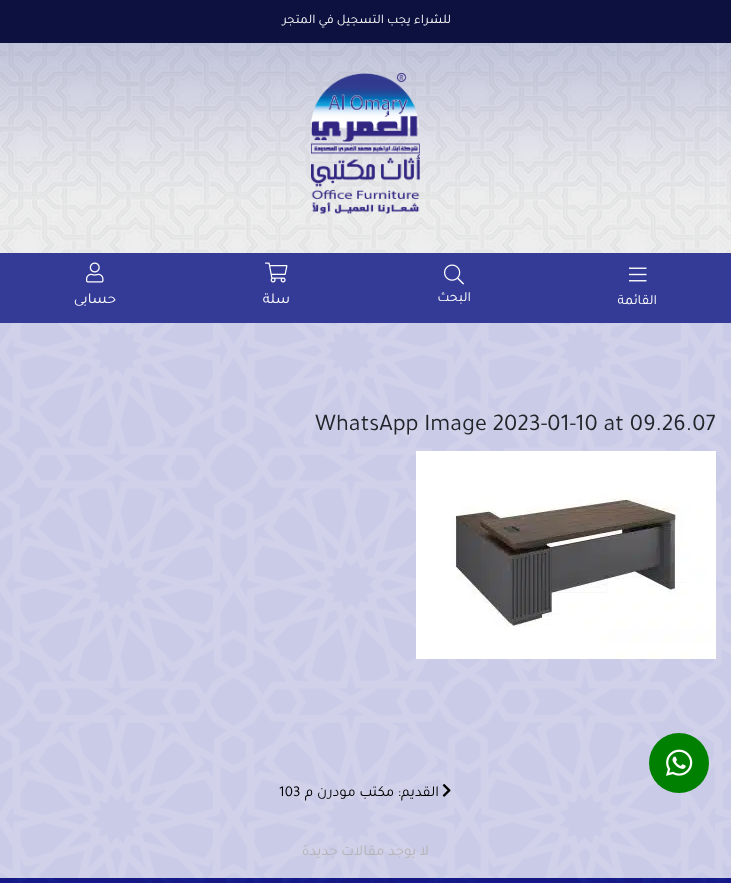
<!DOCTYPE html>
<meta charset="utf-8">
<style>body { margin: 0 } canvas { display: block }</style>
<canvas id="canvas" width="731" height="883"></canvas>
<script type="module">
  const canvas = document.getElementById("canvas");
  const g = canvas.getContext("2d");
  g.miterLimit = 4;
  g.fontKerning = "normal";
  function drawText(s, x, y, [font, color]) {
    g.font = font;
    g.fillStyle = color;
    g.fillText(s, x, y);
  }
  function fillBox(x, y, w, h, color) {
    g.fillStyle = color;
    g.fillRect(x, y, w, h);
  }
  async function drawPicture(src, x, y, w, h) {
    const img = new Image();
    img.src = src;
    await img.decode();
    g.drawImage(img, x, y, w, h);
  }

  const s1 = ["13px Tajawal", "#FFFFFF"];
  const s2 = ["14px Tajawal", "#FFFFFF"];
  const s3 = ["15px Tajawal", "#FFFFFF"];
  const s4 = ["24px Tajawal", "#212529"];
  const s5 = ["15px Tajawal", "#000000"];
  const s6 = ["15px Tajawal", "#B5B5B5"];

  fillBox(0, 0, 731, 883, "#FFFFFF");
  await drawPicture("pic1.png", 0, 323, 731, 555);
  fillBox(0, 0, 731, 43, "#0D1140");
  g.direction = "rtl";
  drawText("للشراء يجب التسجيل في المتجر", 451, 23, s1);
  await drawPicture("pic2.png", 0, 43, 731, 210);
  await drawPicture("pic3.png", 311, 73, 109, 141);
  fillBox(0, 253, 731, 70, "#343B96");
  await drawPicture("pic4.png", 629, 267, 18, 15);
  drawText("القائمة", 657, 304, s2);
  await drawPicture("pic5.png", 444, 264, 20, 21);
  drawText("البحث", 471, 301, s2);
  await drawPicture("pic6.png", 265, 262, 23, 21);
  drawText("سلة", 290, 303, s3);
  await drawPicture("pic7.png", 86, 262, 18, 21);
  drawText("حسابى", 116, 303, s3);
  g.direction = "ltr";
  drawText("WhatsApp Image 2023-01-10 at 09.26.07", 315, 430, s4);
  await drawPicture("pic8.png", 416, 451, 300, 208);
  g.fillStyle = "#008000";
  g.beginPath();
  g.arc(679, 763, 30, 0, Math.PI * 2);
  g.fill();
  await drawPicture("pic9.png", 666, 749, 27, 27);
  await drawPicture("pic10.png", 442, 784, 9, 13);
  g.direction = "rtl";
  drawText("القديم: مكتب مودرن م", 439, 796, s5);
  g.direction = "ltr";
  drawText("103", 279, 796, s5);
  g.direction = "rtl";
  drawText("لا يوجد مقالات جديدة", 429, 855, s6);
  await drawPicture("pic11.png", 0, 878, 731, 5);
</script>
